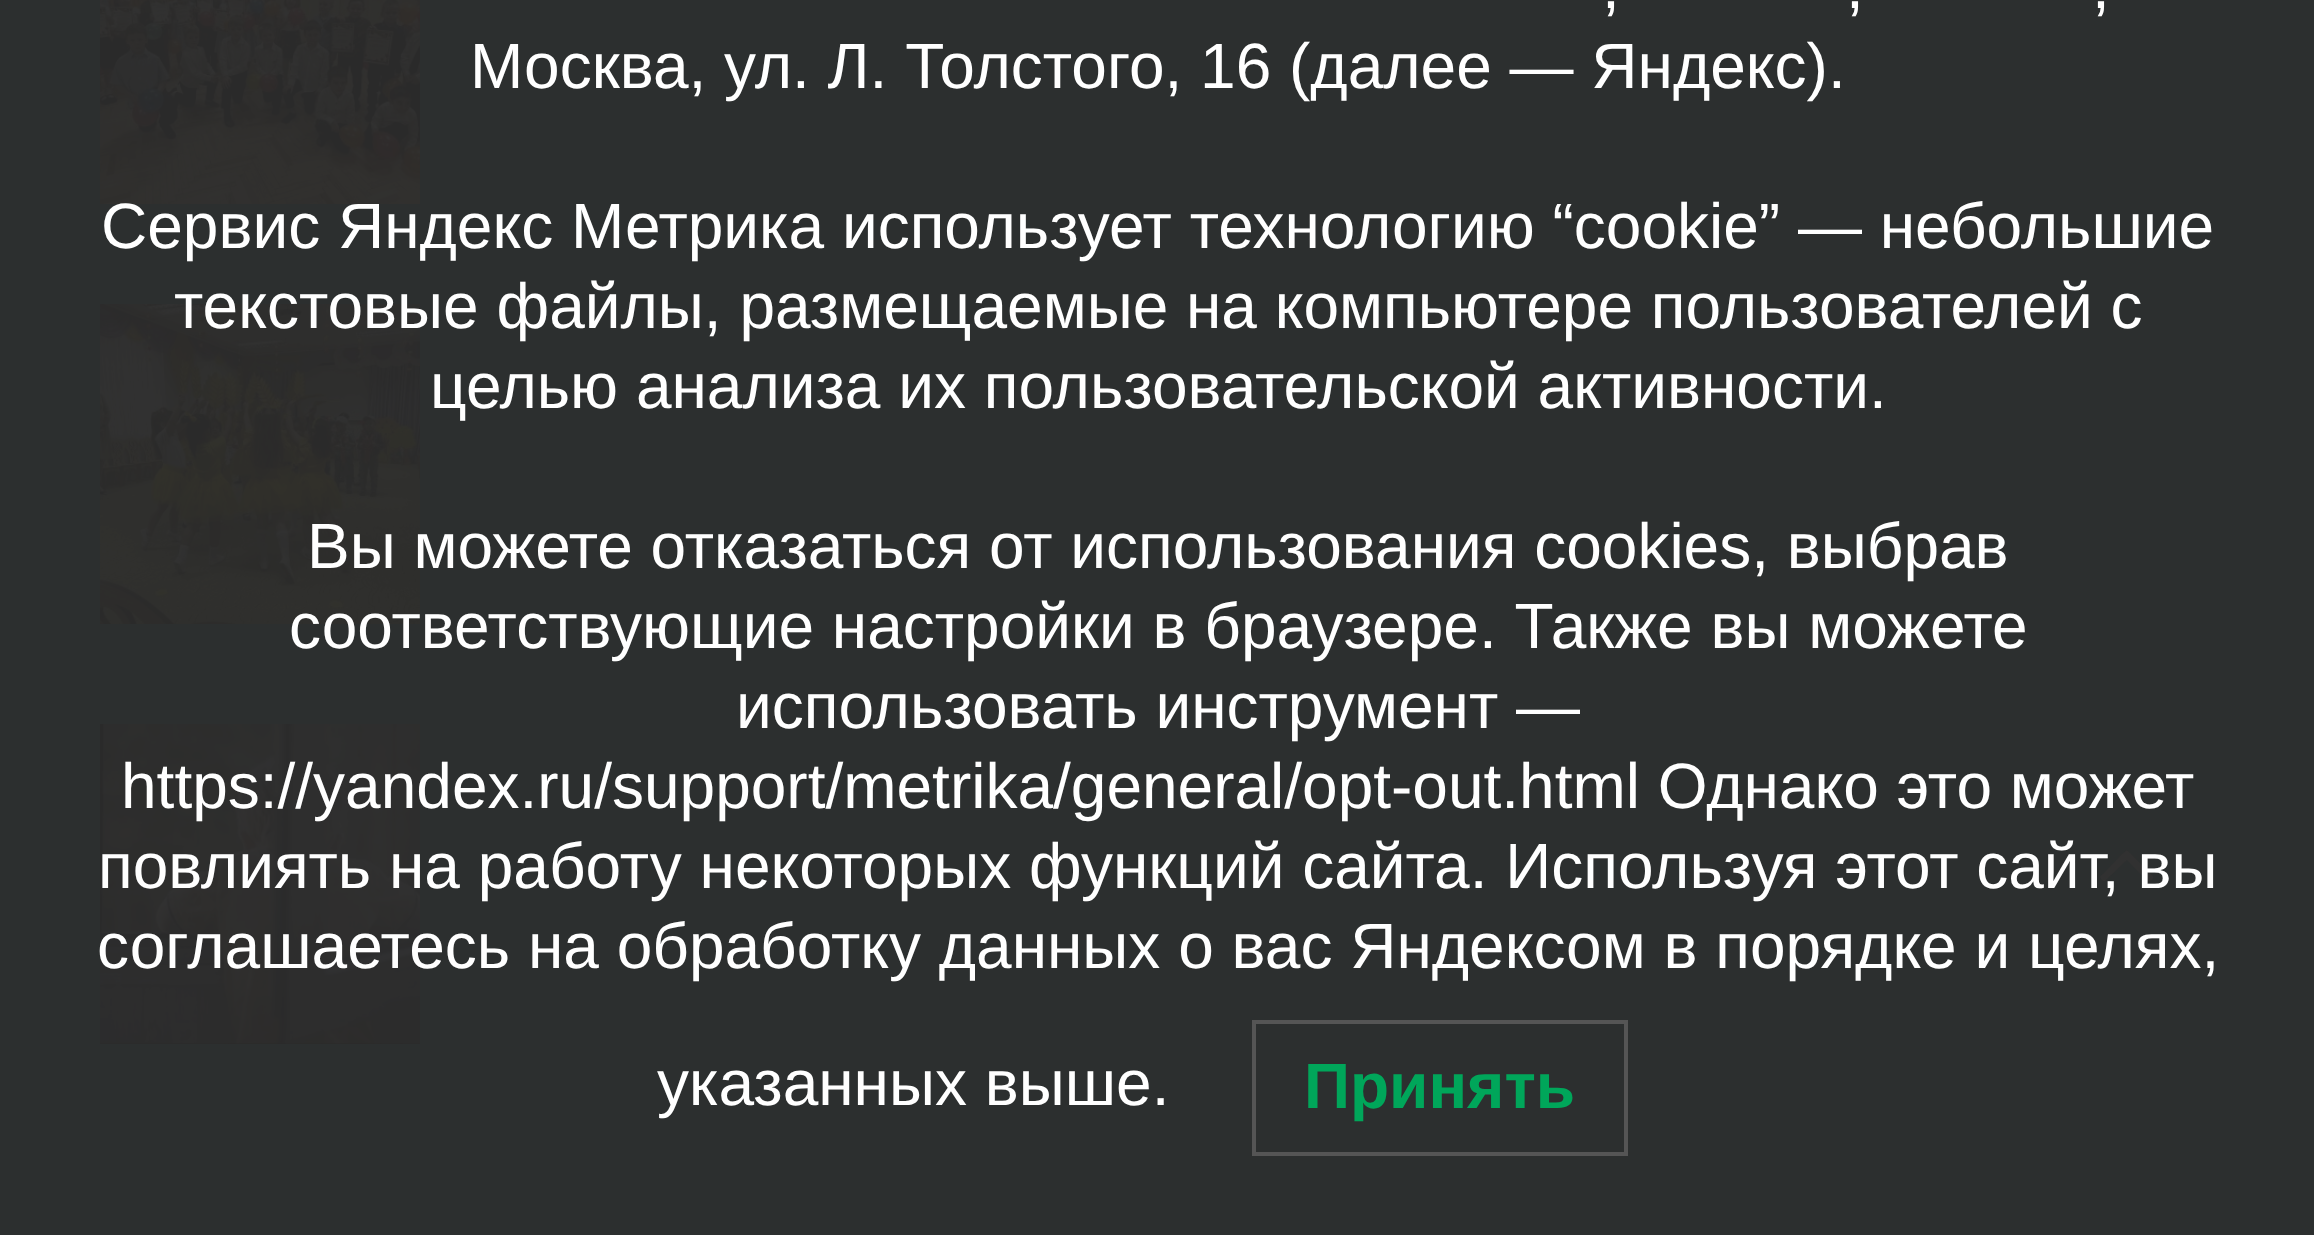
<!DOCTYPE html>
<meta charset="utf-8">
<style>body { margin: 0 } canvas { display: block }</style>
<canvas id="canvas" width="2314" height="1235"></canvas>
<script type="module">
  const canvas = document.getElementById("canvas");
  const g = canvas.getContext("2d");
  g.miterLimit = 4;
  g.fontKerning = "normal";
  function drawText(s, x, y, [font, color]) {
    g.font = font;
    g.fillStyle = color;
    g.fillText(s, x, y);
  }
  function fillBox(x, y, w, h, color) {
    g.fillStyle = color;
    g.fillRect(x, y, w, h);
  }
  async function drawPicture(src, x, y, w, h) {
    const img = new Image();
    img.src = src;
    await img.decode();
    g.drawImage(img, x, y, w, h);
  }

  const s1 = ["64px Liberation Sans", "#FFFFFF"];
  const s2 = ["bold 64px Liberation Sans", "#00A65A"];

  fillBox(0, 0, 2314, 1235, "#2C2F2F");
  await drawPicture("pic1.png", 100, 0, 320, 204);
  await drawPicture("pic2.png", 100, 304, 320, 320);
  await drawPicture("pic3.png", 100, 724, 320, 320);
  drawText(",", 1602, 8, s1);
  drawText(",", 1846, 8, s1);
  drawText(",", 2092, 8, s1);
  drawText("Москва, ул. Л. Толстого, 16 (далее — Яндекс).", 470, 88, s1);
  drawText("Сервис Яндекс Метрика использует технологию “cookie” — небольшие", 101, 248, s1);
  drawText("текстовые файлы, размещаемые на компьютере пользователей с", 174, 328, s1);
  drawText("целью анализа их пользовательской активности.", 430, 408, s1);
  drawText("Вы можете отказаться от использования cookies, выбрав", 307, 568, s1);
  drawText("соответствующие настройки в браузере. Также вы можете", 289, 648, s1);
  drawText("использовать инструмент —", 736, 728, s1);
  drawText("https://yandex.ru/support/metrika/general/opt-out.html Однако это может", 121, 808, s1);
  g.fillStyle = "#313131";
  g.beginPath();
  g.moveTo(2153, 876);
  g.bezierCurveTo(2154, 877, 2153, 879, 2152, 880);
  g.bezierCurveTo(2148, 883, 2148, 881, 2144, 878);
  g.lineTo(2127, 860);
  g.lineTo(2105, 881);
  g.bezierCurveTo(2104, 882, 2103, 881, 2102, 880);
  g.bezierCurveTo(2098, 876, 2101, 876, 2105, 872);
  g.lineTo(2121, 855);
  g.bezierCurveTo(2128, 849, 2126, 849, 2132, 855);
  g.closePath();
  g.fill();
  drawText("повлиять на работу некоторых функций сайта. Используя этот сайт, вы", 98, 888, s1);
  drawText("соглашаетесь на обработку данных о вас Яндексом в порядке и целях,", 97, 968, s1);
  drawText("указанных выше.", 657, 1105, s1);
  g.strokeStyle = "#555555";
  g.lineWidth = 4;
  g.strokeRect(1254, 1022, 372, 132);
  drawText("Принять", 1304, 1108, s2);
</script>
